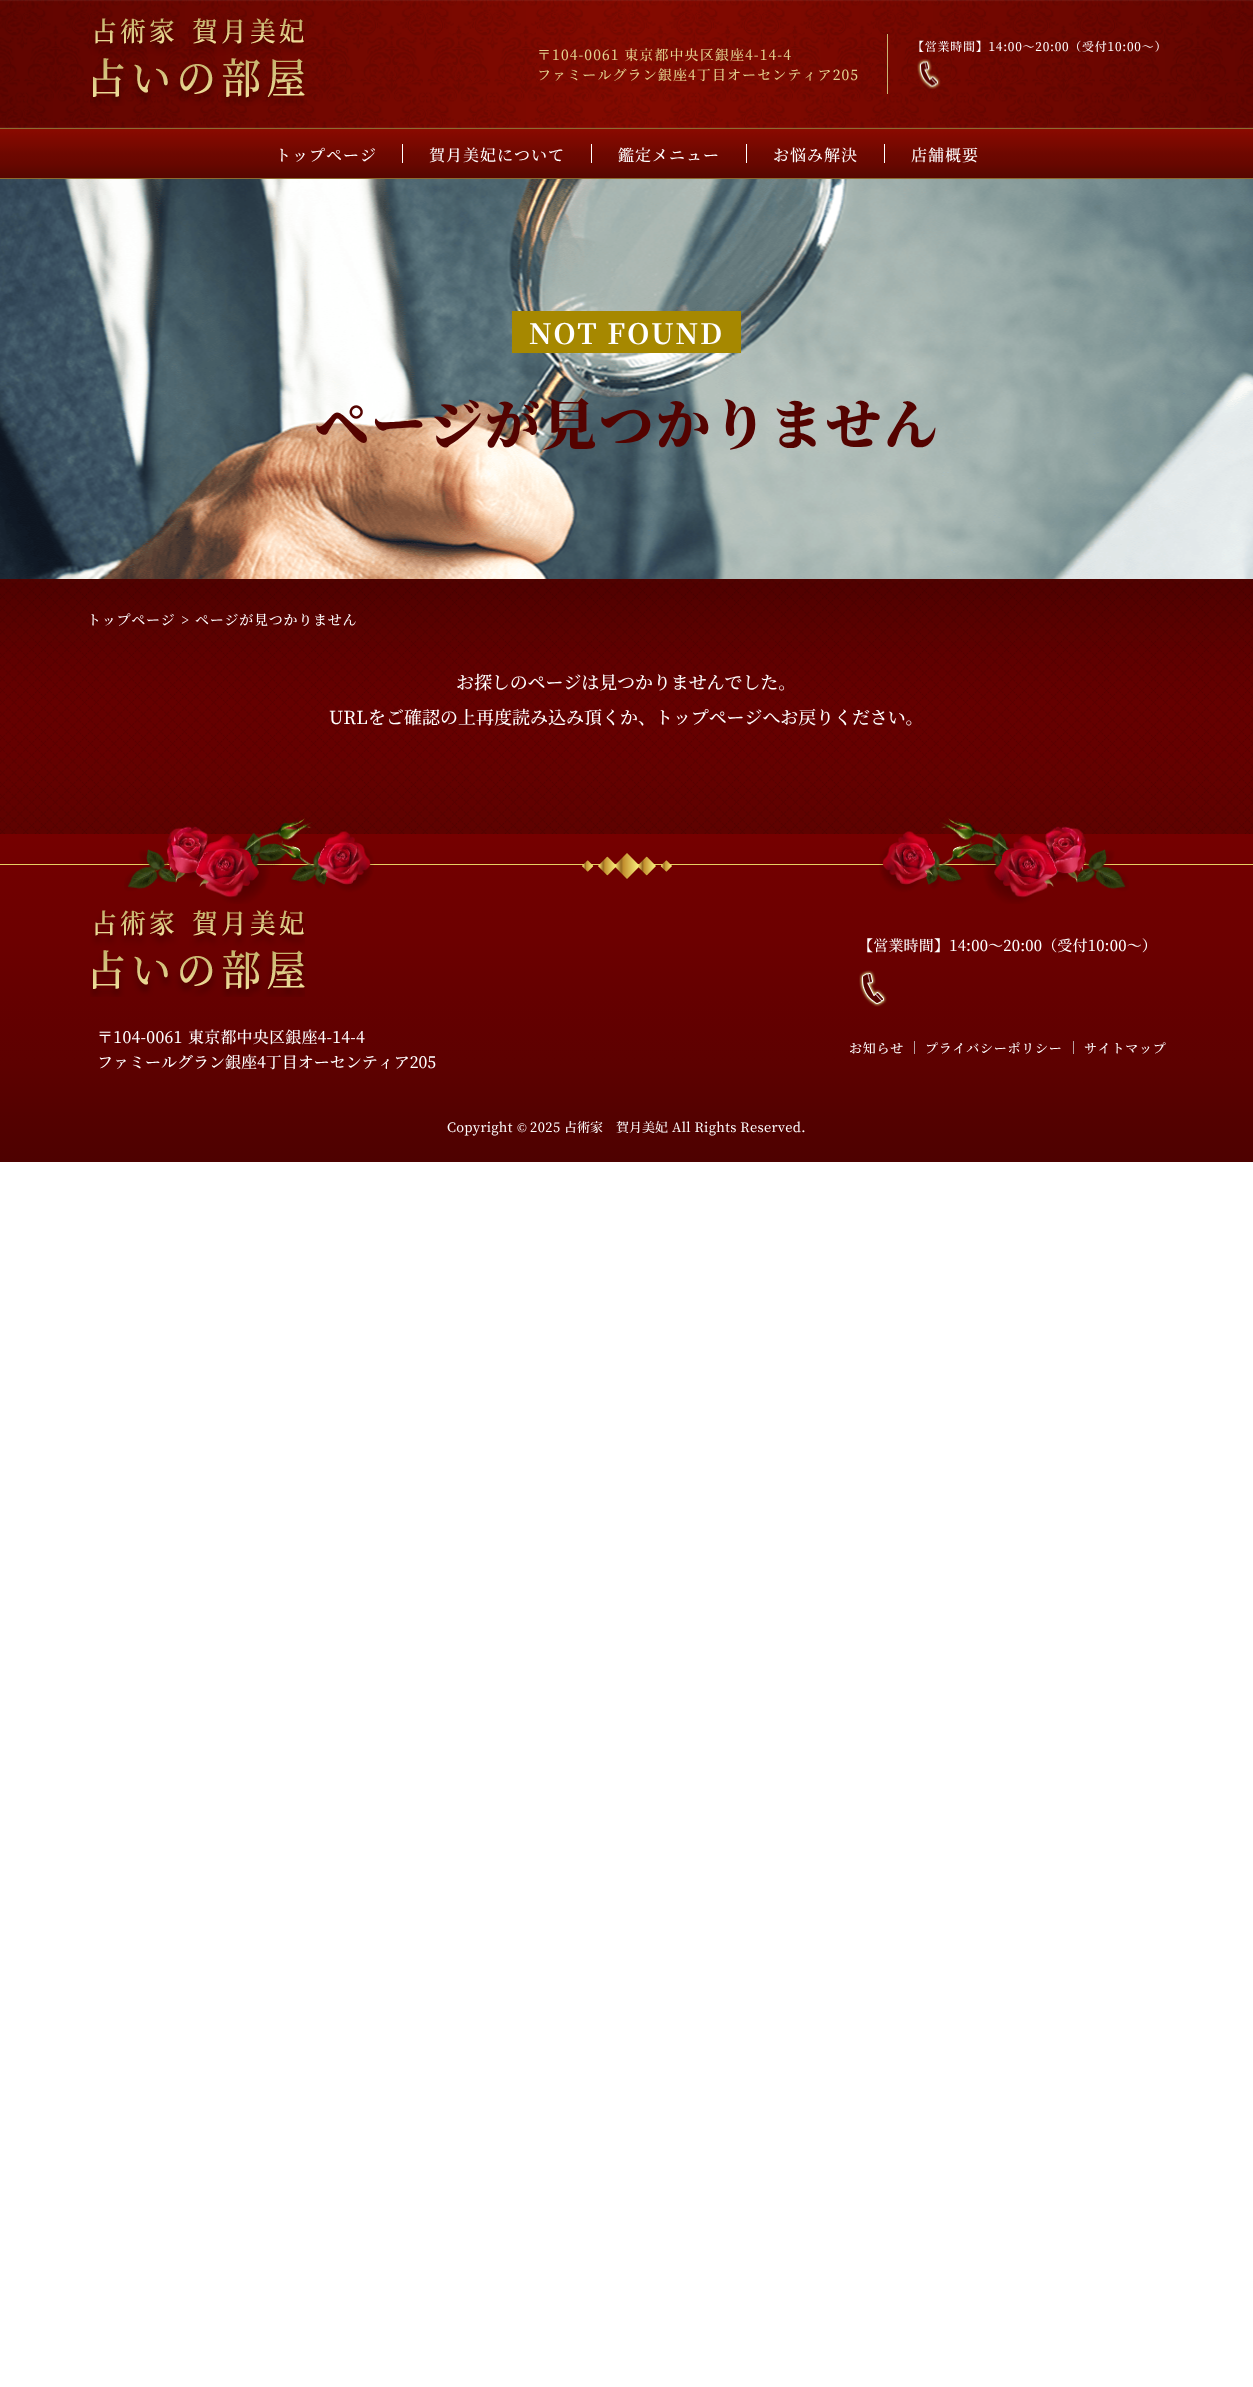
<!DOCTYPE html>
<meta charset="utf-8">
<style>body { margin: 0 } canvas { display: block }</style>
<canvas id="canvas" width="1253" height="2387"></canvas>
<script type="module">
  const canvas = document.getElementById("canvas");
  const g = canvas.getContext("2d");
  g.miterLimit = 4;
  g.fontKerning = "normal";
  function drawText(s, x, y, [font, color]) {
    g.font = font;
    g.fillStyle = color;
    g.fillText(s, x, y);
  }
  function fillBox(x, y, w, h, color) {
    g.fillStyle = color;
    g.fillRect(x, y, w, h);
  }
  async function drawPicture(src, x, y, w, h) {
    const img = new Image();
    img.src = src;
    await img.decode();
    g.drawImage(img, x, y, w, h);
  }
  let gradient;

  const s1 = ["500 12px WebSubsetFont", "#FFFFFF"];
  const s2 = ["500 14px WebSubsetFont", "#E4D38F"];
  const s3 = ["500 16px WebSubsetFont", "#FFFFFF"];
  const s4 = ["bold 28px WebSubsetFont", "#FFFFFF"];
  const s5 = ["900 55px WebSubsetFont", "#540300"];
  const s6 = ["500 14px WebSubsetFont", "#FFFFFF"];
  const s7 = ["500 18px WebSubsetFont", "#FFFFFF"];
  const s8 = ["500 15px WebSubsetFont", "#FFFFFF"];
  const s9 = ["500 13px WebSubsetFont", "#FFFFFF"];
  const s10 = ["13px Liberation Serif", "#FFFFFF"];

  fillBox(0, 0, 1253, 2387, "#FFFFFF");
  await drawPicture("pic1.png", 0, 0, 1253, 128);
  await drawPicture("pic2.png", 90, 18, 215, 88);
  fillBox(887, 34, 1, 60, "#C8B771");
  g.letterSpacing = "0.75px";
  drawText("【営業時間】14:00～20:00（受付10:00～）", 912, 51, s1);
  await drawPicture("pic3.png", 917, 59, 24, 30);
  g.letterSpacing = "1.1px";
  drawText("〒104-0061 東京都中央区銀座4-14-4", 537, 60, s2);
  drawText("ファミールグラン銀座4丁目オーセンティア205", 537, 80, s2);
  gradient = g.createLinearGradient(627, 129, 627, 178);
  gradient.addColorStop(0, "#8B0A00");
  gradient.addColorStop(0.13, "#830900");
  gradient.addColorStop(0.33, "#790900");
  gradient.addColorStop(0.49, "#6F0800");
  gradient.addColorStop(0.71, "#680700");
  gradient.addColorStop(0.86, "#5E0700");
  gradient.addColorStop(1, "#560600");
  g.fillStyle = gradient;
  g.fillRect(0, 129, 1253, 49);
  fillBox(0, 128, 1253, 1, "#8E6D30");
  fillBox(0, 178, 1253, 1, "#8E6D30");
  g.letterSpacing = "1px";
  drawText("トップページ", 275, 161, s3);
  fillBox(402, 144, 1, 19, "#FFFFFF");
  drawText("賀月美妃について", 429, 161, s3);
  fillBox(591, 144, 1, 19, "#FFFFFF");
  drawText("鑑定メニュー", 618, 161, s3);
  fillBox(746, 144, 1, 19, "#FFFFFF");
  drawText("お悩み解決", 773, 161, s3);
  fillBox(884, 144, 1, 19, "#FFFFFF");
  drawText("店舗概要", 911, 161, s3);
  await drawPicture("pic4.png", 0, 179, 1253, 400);
  fillBox(512, 311, 229, 42, "#A68800");
  g.letterSpacing = "1.75px";
  drawText("NOT FOUND", 529, 344, s4);
  g.letterSpacing = "1.9px";
  drawText("ページが見つかりません", 314, 445, s5);
  await drawPicture("pic5.png", 0, 579, 1253, 255);
  g.letterSpacing = "0.75px";
  drawText("トップページ", 87, 625, s6);
  drawText(">", 181, 625, s6);
  drawText("ページが見つかりません", 195, 625, s6);
  g.letterSpacing = "-0.1px";
  drawText("お探しのページは見つかりませんでした。", 456, 689, s7);
  g.letterSpacing = "0px";
  drawText("URLをご確認の上再度読み込み頂くか、", 329, 724, s7);
  g.letterSpacing = "-0.1px";
  drawText("トップページへお戻りください。", 655, 724, s7);
  gradient = g.createLinearGradient(627, 834, 627, 1162);
  gradient.addColorStop(0, "#760000");
  gradient.addColorStop(0.13, "#710000");
  gradient.addColorStop(0.33, "#6C0000");
  gradient.addColorStop(0.49, "#650000");
  gradient.addColorStop(0.71, "#5D0100");
  gradient.addColorStop(0.86, "#540100");
  gradient.addColorStop(1, "#4E0100");
  g.fillStyle = gradient;
  g.fillRect(0, 834, 1253, 328);
  fillBox(0, 864, 1253, 1, "#E7CF62");
  await drawPicture("pic6.png", 124, 818, 250, 86);
  await drawPicture("pic7.png", 879, 818, 250, 86);
  await drawPicture("pic8.png", 582, 853, 90, 26);
  await drawPicture("pic9.png", 90, 910, 215, 87);
  g.letterSpacing = "0.3px";
  drawText("〒104-0061", 97, 1043, s3);
  g.letterSpacing = "0.2px";
  drawText("東京都中央区銀座4-14-4", 188, 1043, s3);
  g.letterSpacing = "0px";
  drawText("ファミールグラン銀座4丁目オーセンティア205", 97, 1068, s3);
  g.letterSpacing = "0.2px";
  drawText("【営業時間】14:00～20:00（受付10:00～）", 858, 951, s8);
  await drawPicture("pic10.png", 859, 970, 28, 37);
  g.letterSpacing = "0.75px";
  drawText("お知らせ", 849, 1053, s9);
  fillBox(914, 1041, 1, 13, "#B7A2A2");
  drawText("プライバシーポリシー", 925, 1053, s9);
  fillBox(1073, 1041, 1, 13, "#B7A2A2");
  drawText("サイトマップ", 1084, 1053, s9);
  g.letterSpacing = "0.25px";
  drawText("Copyright", 447, 1132, s9);
  g.letterSpacing = "0px";
  drawText("©", 517, 1132, s10);
  g.letterSpacing = "0.5px";
  drawText("2025", 530, 1132, s9);
  g.letterSpacing = "0px";
  drawText("占術家　賀月美妃", 564, 1132, s9);
  g.letterSpacing = "0.3px";
  drawText("All Rights Reserved.", 672, 1132, s9);
</script>
